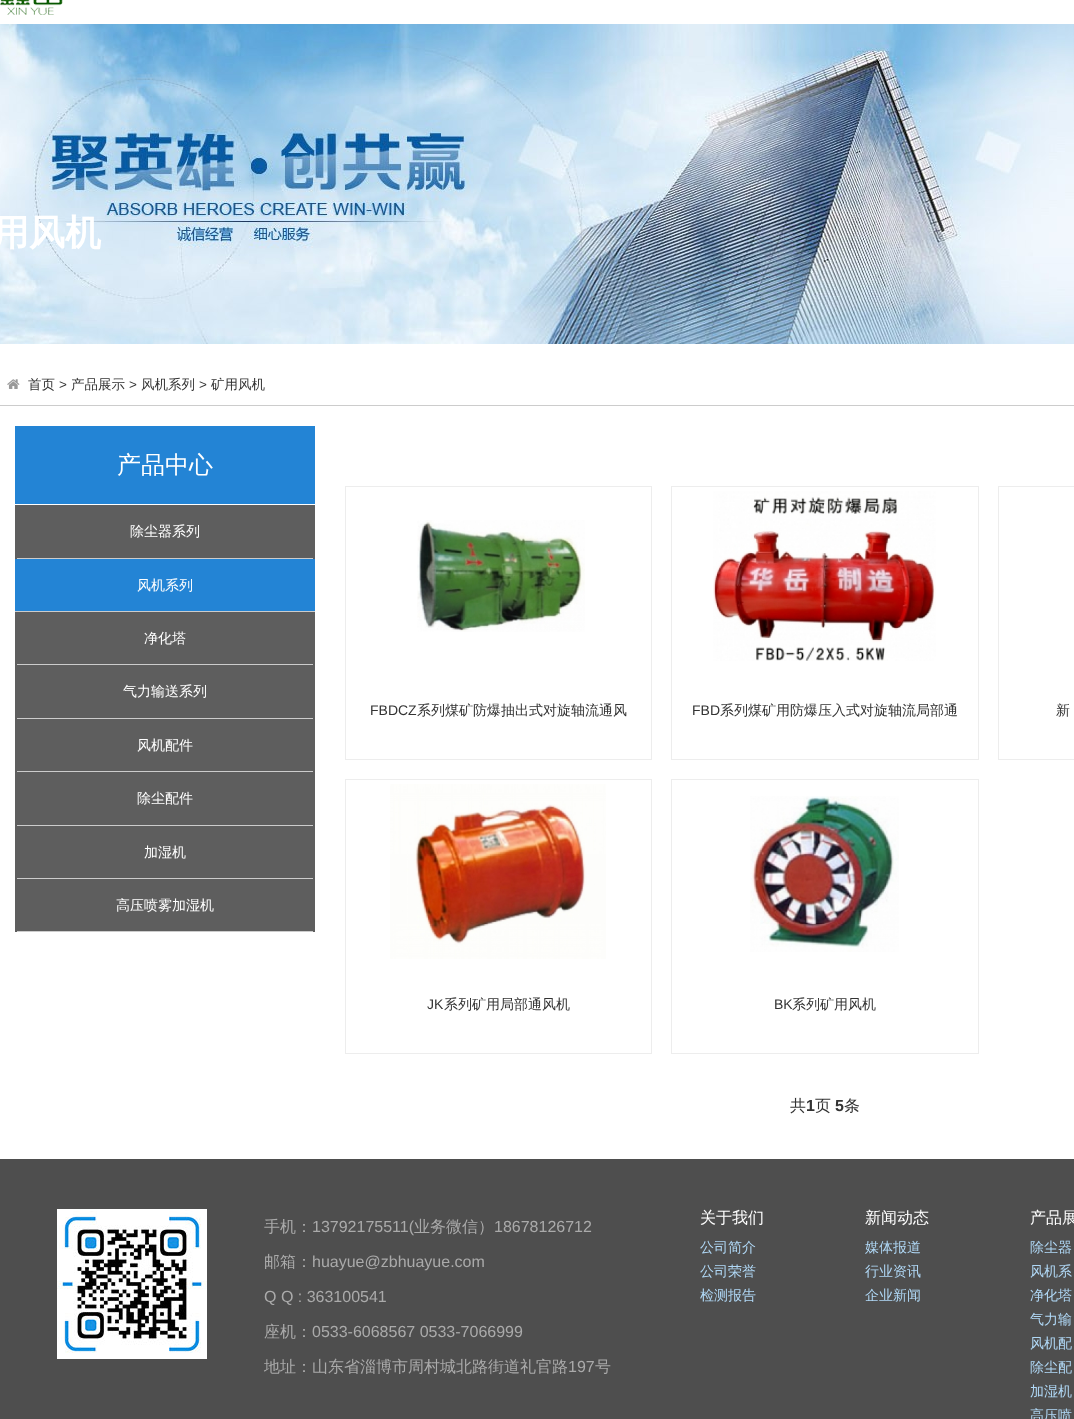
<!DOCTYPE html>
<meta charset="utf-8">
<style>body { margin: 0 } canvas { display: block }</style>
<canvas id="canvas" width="1074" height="1419"></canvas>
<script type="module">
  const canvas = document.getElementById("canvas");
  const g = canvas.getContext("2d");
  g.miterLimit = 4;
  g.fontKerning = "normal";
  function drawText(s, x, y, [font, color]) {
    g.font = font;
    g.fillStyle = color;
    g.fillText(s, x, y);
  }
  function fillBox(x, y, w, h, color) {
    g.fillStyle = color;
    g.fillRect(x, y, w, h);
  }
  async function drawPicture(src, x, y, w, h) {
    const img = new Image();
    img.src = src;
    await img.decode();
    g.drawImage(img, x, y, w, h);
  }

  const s1 = ["bold 36px WenQuanYi Zen Hei", "#FFFFFF"];
  const s2 = ["500 13.5px WenQuanYi Zen Hei", "#333333"];
  const s3 = ["13.5px Liberation Sans", "#333333"];
  const s4 = ["500 24px WenQuanYi Zen Hei", "#FFFFFF"];
  const s5 = ["500 14px WenQuanYi Zen Hei", "#FFFFFF"];
  const s6 = ["14px Liberation Sans", "#333333"];
  const s7 = ["500 14px WenQuanYi Zen Hei", "#333333"];
  const s8 = ["500 16px WenQuanYi Zen Hei", "#333333"];
  const s9 = ["bold 16px Liberation Sans", "#333333"];
  const s10 = ["500 16px WenQuanYi Zen Hei", "#AAAAAA"];
  const s11 = ["16px Liberation Sans", "#AAAAAA"];
  const s12 = ["500 16px WenQuanYi Zen Hei", "#FFFFFF"];
  const s13 = ["500 14px WenQuanYi Zen Hei", "#B0D8F6"];

  fillBox(0, 0, 1074, 1419, "#FFFFFF");
  await drawPicture("pic1.png", 0, 0, 63, 15);
  await drawPicture("pic2.png", 0, 24, 1074, 320);
  drawText("用风机", -7, 245, s1);
  fillBox(0, 405, 1074, 1, "#CCCCCC");
  await drawPicture("pic3.png", 7, 379, 13, 10);
  drawText("首页", 28, 389, s2);
  drawText(">", 59, 389, s3);
  drawText("产品展示", 71, 389, s2);
  drawText(">", 129, 389, s3);
  drawText("风机系列", 141, 389, s2);
  drawText(">", 199, 389, s3);
  drawText("矿用风机", 211, 389, s2);
  fillBox(15, 426, 300, 78, "#2384D5");
  drawText("产品中心", 117, 473, s4);
  fillBox(15, 505, 300, 427, "#5E5E5E");
  fillBox(17, 558, 296, 1, "#CCCCCC");
  drawText("除尘器系列", 130, 536, s5);
  fillBox(15, 559, 300, 52, "#2384D5");
  fillBox(15, 611, 300, 1, "#CCCCCC");
  drawText("风机系列", 137, 590, s5);
  fillBox(17, 664, 296, 1, "#CCCCCC");
  drawText("净化塔", 144, 643, s5);
  fillBox(17, 718, 296, 1, "#CCCCCC");
  drawText("气力输送系列", 123, 696, s5);
  fillBox(17, 771, 296, 1, "#CCCCCC");
  drawText("风机配件", 137, 750, s5);
  fillBox(17, 825, 296, 1, "#CCCCCC");
  drawText("除尘配件", 137, 803, s5);
  fillBox(17, 878, 296, 1, "#CCCCCC");
  drawText("加湿机", 144, 857, s5);
  fillBox(17, 931, 296, 1, "#CCCCCC");
  drawText("高压喷雾加湿机", 116, 910, s5);
  g.strokeStyle = "#EDEDED";
  g.strokeRect(345.5, 486.5, 306, 273);
  await drawPicture("pic4.png", 417, 520, 168, 112);
  drawText("FBDCZ", 370, 715, s6);
  drawText("系列煤矿防爆抽出式对旋轴流通风", 417, 715, s7);
  g.strokeRect(671.5, 486.5, 307, 273);
  await drawPicture("pic5.png", 713, 491, 223, 170);
  drawText("FBD", 692, 715, s6);
  drawText("系列煤矿用防爆压入式对旋轴流局部通", 720, 715, s7);
  g.strokeRect(998.5, 486.5, 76, 273);
  drawText("新", 1056, 715, s7);
  g.strokeRect(345.5, 779.5, 306, 274);
  await drawPicture("pic6.png", 390, 784, 216, 175);
  drawText("JK", 427, 1009, s6);
  drawText("系列矿用局部通风机", 444, 1009, s7);
  g.strokeRect(671.5, 779.5, 307, 274);
  await drawPicture("pic7.png", 750, 796, 149, 156);
  drawText("BK", 774, 1009, s6);
  drawText("系列矿用风机", 792, 1009, s7);
  drawText("共", 790, 1111, s8);
  drawText("1", 806, 1111, s9);
  drawText("页", 815, 1111, s8);
  drawText("5", 835, 1111, s9);
  drawText("条", 844, 1111, s8);
  fillBox(0, 1159, 1074, 260, "#4E4E4E");
  await drawPicture("pic8.png", 57, 1209, 150, 150);
  drawText("手机：", 264, 1232, s10);
  drawText("13792175511(", 312, 1232, s11);
  drawText("业务微信）", 414, 1232, s10);
  drawText("18678126712", 494, 1232, s11);
  drawText("邮箱：", 264, 1267, s10);
  drawText("huayue@zbhuayue.com", 312, 1267, s11);
  drawText("Q Q : 363100541", 264, 1302, s11);
  drawText("座机：", 264, 1337, s10);
  drawText("0533-6068567 0533-7066999", 312, 1337, s11);
  drawText("地址：山东省淄博市周村城北路街道礼官路", 264, 1372, s10);
  drawText("197", 568, 1372, s11);
  drawText("号", 595, 1372, s10);
  drawText("关于我们", 700, 1223, s12);
  drawText("公司简介", 700, 1252, s13);
  drawText("公司荣誉", 700, 1276, s13);
  drawText("检测报告", 700, 1300, s13);
  drawText("新闻动态", 865, 1223, s12);
  drawText("媒体报道", 865, 1252, s13);
  drawText("行业资讯", 865, 1276, s13);
  drawText("企业新闻", 865, 1300, s13);
  drawText("产品展", 1030, 1223, s12);
  drawText("除尘器", 1030, 1252, s13);
  drawText("风机系", 1030, 1276, s13);
  drawText("净化塔", 1030, 1300, s13);
  drawText("气力输", 1030, 1324, s13);
  drawText("风机配", 1030, 1348, s13);
  drawText("除尘配", 1030, 1372, s13);
  drawText("加湿机", 1030, 1396, s13);
  drawText("高压喷", 1030, 1420, s13);
</script>
